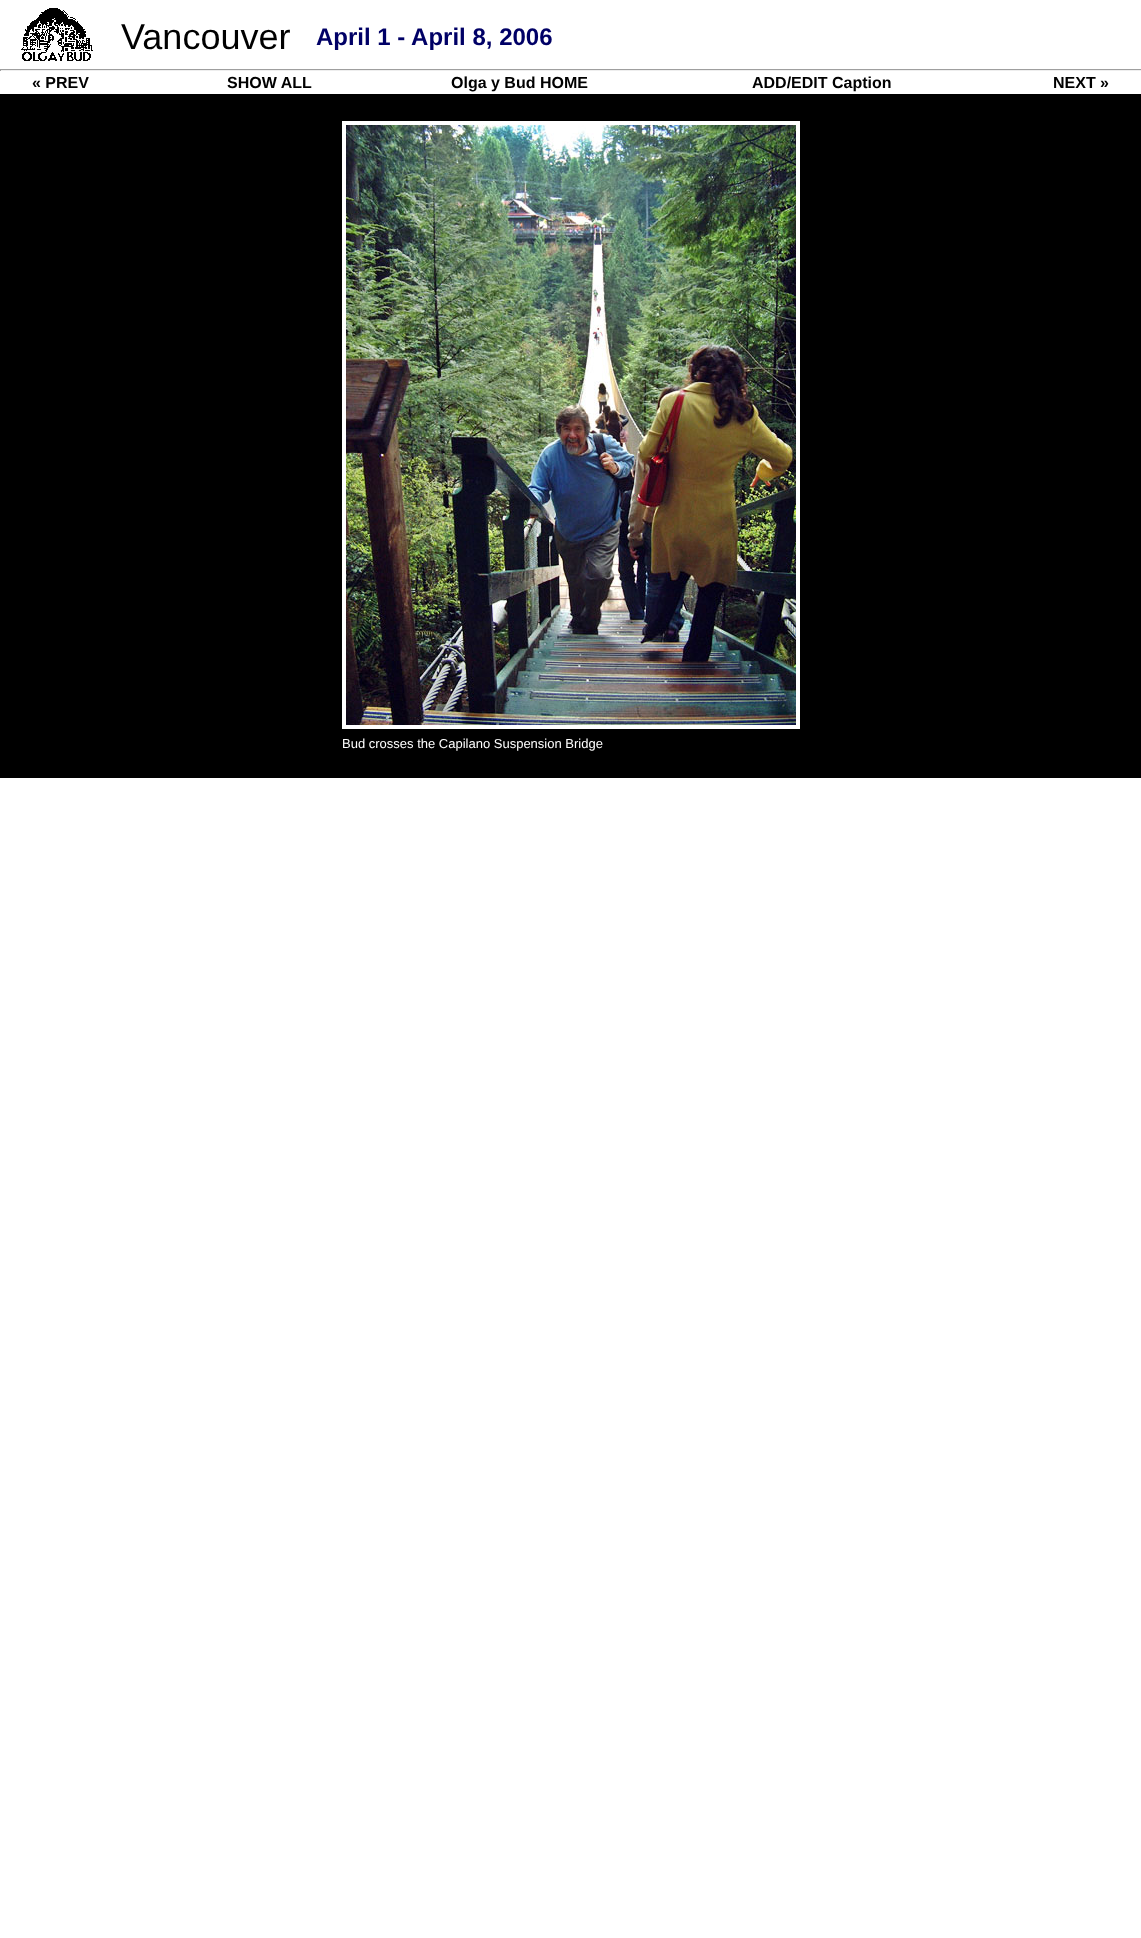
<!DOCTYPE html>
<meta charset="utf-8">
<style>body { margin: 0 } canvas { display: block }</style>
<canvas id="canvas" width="1141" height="1938"></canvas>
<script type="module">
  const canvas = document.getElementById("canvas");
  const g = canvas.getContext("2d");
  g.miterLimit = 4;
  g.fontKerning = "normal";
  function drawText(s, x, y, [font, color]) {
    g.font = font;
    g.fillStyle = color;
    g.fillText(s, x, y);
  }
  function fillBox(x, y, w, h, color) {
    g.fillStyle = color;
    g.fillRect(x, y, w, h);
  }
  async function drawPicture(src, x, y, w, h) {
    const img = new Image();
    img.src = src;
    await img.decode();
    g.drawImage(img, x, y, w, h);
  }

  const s1 = ["36px Liberation Sans", "#000000"];
  const s2 = ["bold 24px Liberation Sans", "#000066"];
  const s3 = ["bold 16px Liberation Sans", "#000000"];
  const s4 = ["13px Liberation Sans", "#FFFFFF"];

  fillBox(0, 0, 1141, 1938, "#FFFFFF");
  await drawPicture("pic1.png", 21, 8, 72, 53);
  drawText("Vancouver", 121, 49, s1);
  drawText("April 1 - April 8, 2006", 316, 45, s2);
  fillBox(0, 69, 1141, 1, "#9F9F9F");
  fillBox(0, 70, 1141, 1, "#EEEEEE");
  fillBox(0, 69, 1, 2, "#9F9F9F");
  drawText("« PREV", 32, 88, s3);
  drawText("SHOW ALL", 227, 88, s3);
  drawText("Olga y Bud HOME", 451, 88, s3);
  drawText("ADD/EDIT Caption", 752, 88, s3);
  drawText("NEXT »", 1053, 88, s3);
  fillBox(0, 94, 1141, 684, "#000000");
  g.strokeStyle = "#FFFFFF";
  g.lineWidth = 4;
  g.strokeRect(344, 123, 454, 604);
  await drawPicture("pic2.png", 346, 125, 450, 600);
  drawText("Bud crosses the Capilano Suspension Bridge", 342, 748, s4);
</script>
